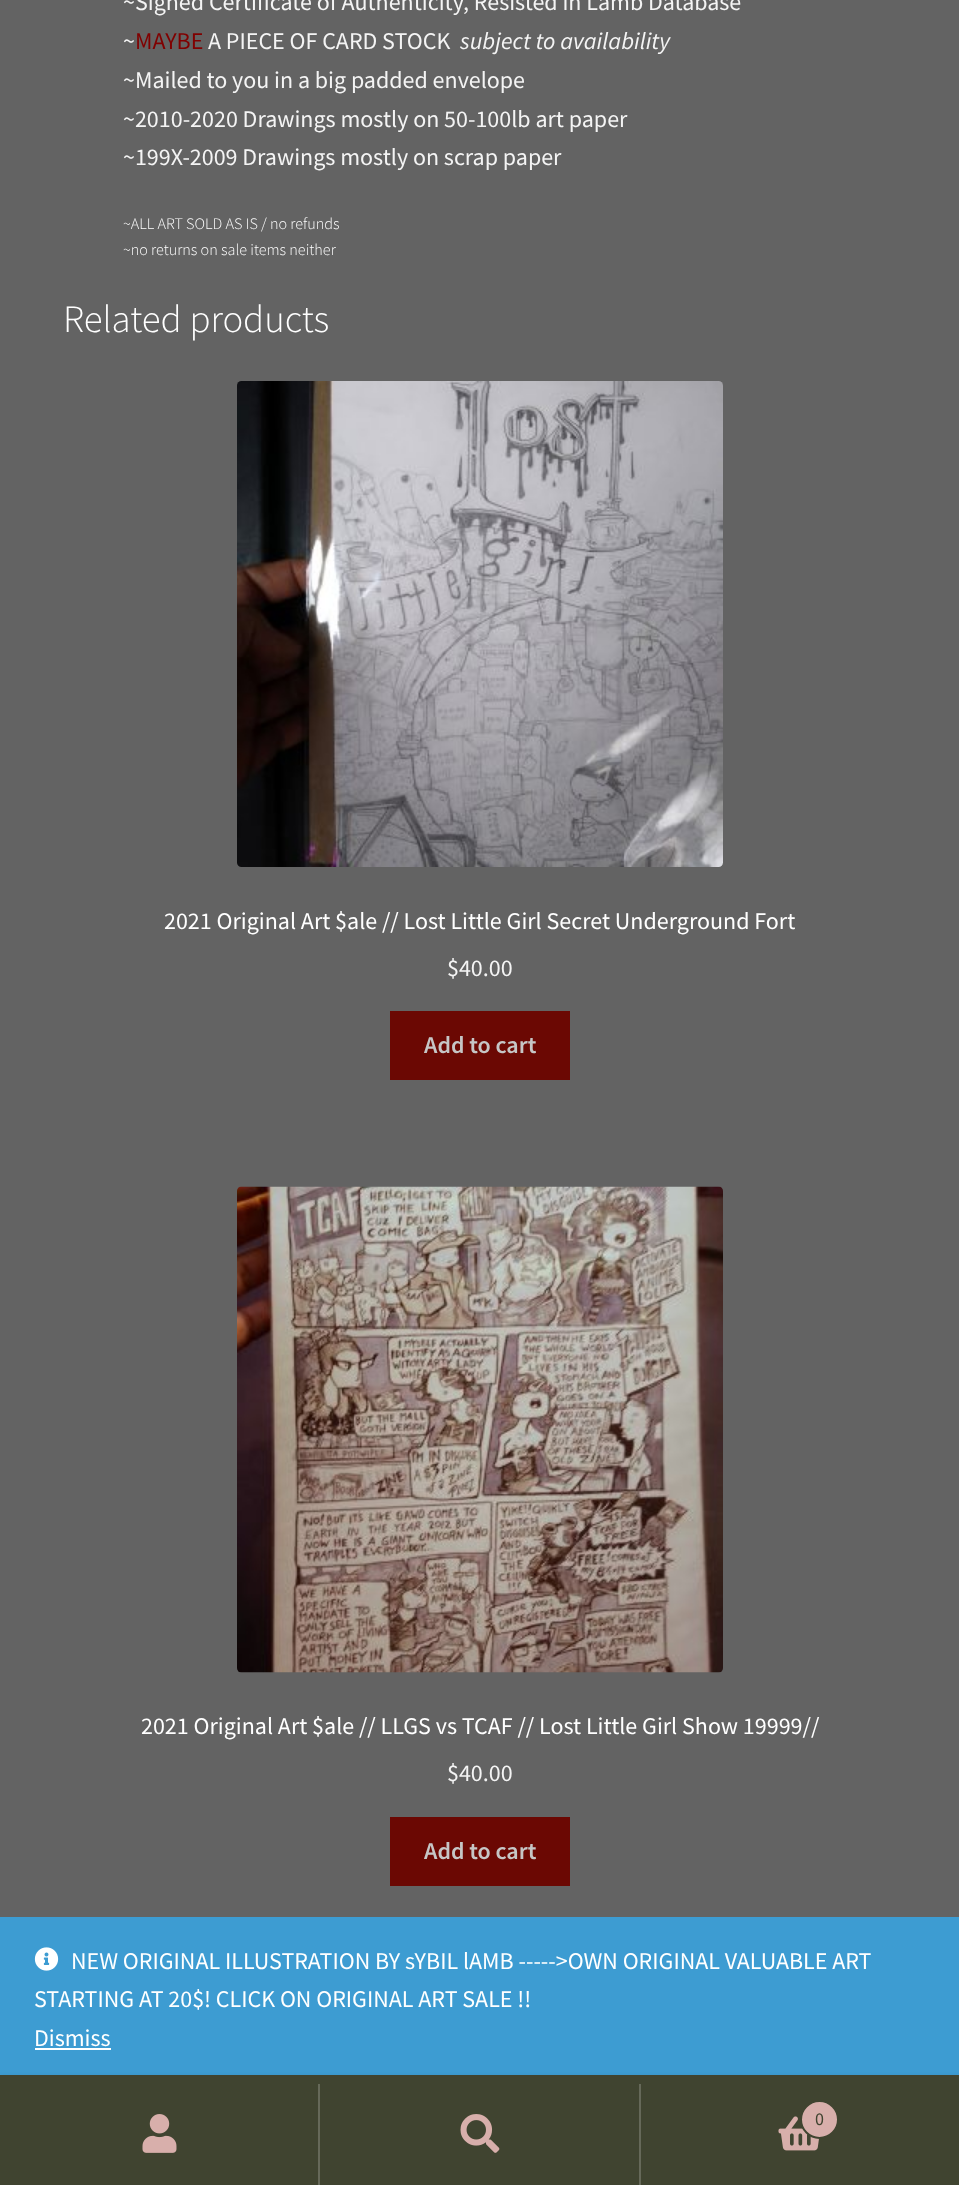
<!DOCTYPE html>
<meta charset="utf-8">
<style>body { margin: 0 } canvas { display: block }</style>
<canvas id="canvas" width="959" height="2185"></canvas>
<script type="module">
  const canvas = document.getElementById("canvas");
  const g = canvas.getContext("2d");
  g.miterLimit = 4;
  g.fontKerning = "normal";
  function drawText(s, x, y, [font, color]) {
    g.font = font;
    g.fillStyle = color;
    g.fillText(s, x, y);
  }
  function fillBox(x, y, w, h, color) {
    g.fillStyle = color;
    g.fillRect(x, y, w, h);
  }
  async function drawPicture(src, x, y, w, h) {
    const img = new Image();
    img.src = src;
    await img.decode();
    g.drawImage(img, x, y, w, h);
  }

  const s1 = ["24px Source Sans Pro", "#F4F4F4"];
  const s2 = ["24px Source Sans Pro", "#800000"];
  const s3 = ["italic 24px Source Sans Pro", "#F4F4F4"];
  const s4 = ["300 16.1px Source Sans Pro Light", "#FFFFFF"];
  const s5 = ["300 38.75px Source Sans Pro Light", "#FFFFFF"];
  const s6 = ["24px Source Sans Pro", "#FFFFFF"];
  const s7 = ["600 24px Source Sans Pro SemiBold", "#C6C6C6"];
  const s8 = ["18px Source Sans Pro", "#404430"];

  fillBox(0, 0, 959, 2185, "#636363");
  drawText("~Signed Certificate of Authenticity, Resisted in Lamb Database", 123, 10, s1);
  drawText("~", 123, 49, s1);
  drawText("MAYBE", 135, 49, s2);
  drawText("A PIECE OF CARD STOCK", 208, 49, s1);
  drawText("subject to availability", 460, 49, s3);
  drawText("~Mailed to you in a big padded envelope", 123, 88, s1);
  drawText("~2010-2020 Drawings mostly on 50-100lb art paper", 123, 127, s1);
  drawText("~199X-2009 Drawings mostly on scrap paper", 123, 165, s1);
  drawText("~ALL ART SOLD AS IS / no refunds", 123, 229, s4);
  drawText("~no returns on sale items neither", 123, 255, s4);
  drawText("Related products", 63, 332, s5);
  await drawPicture("pic1.png", 237, 381, 486, 486);
  drawText("2021 Original Art $ale // Lost Little Girl Secret Underground Fort", 164, 929, s6);
  drawText("$40.00", 447, 976, s1);
  fillBox(390, 1011, 180, 69, "#6B0803");
  drawText("Add to cart", 424, 1053, s7);
  await drawPicture("pic2.png", 237, 1186, 486, 487);
  drawText("2021 Original Art $ale // LLGS vs TCAF // Lost Little Girl Show 19999//", 141, 1734, s6);
  drawText("$40.00", 447, 1781, s1);
  fillBox(390, 1817, 180, 69, "#6B0803");
  drawText("Add to cart", 424, 1859, s7);
  fillBox(0, 1917, 959, 158, "#3D9CD2");
  g.fillStyle = "rgba(0, 0, 0, 0.7)";
  g.filter = "blur(4.5px)";
  g.beginPath();
  g.rect(0, 2082, 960, 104);
  g.fill();
  g.filter = "none";
  fillBox(0, 2075, 959, 9, "#404430");
  fillBox(320, 2084, 319, 101, "#404430");
  fillBox(639, 2084, 2, 101, "#666959");
  await drawPicture("pic3.png", 460, 2114, 40, 39);
  fillBox(0, 2084, 318, 101, "#404430");
  fillBox(318, 2084, 2, 101, "#666959");
  await drawPicture("pic4.png", 142, 2114, 35, 39);
  fillBox(641, 2084, 318, 101, "#404430");
  await drawPicture("pic5.png", 778, 2116, 41, 35);
  g.fillStyle = "#D8AFAB";
  g.beginPath();
  g.arc(819.5, 2119.5, 18.5, 0, Math.PI * 2);
  g.fill();
  g.strokeStyle = "#404430";
  g.lineWidth = 2;
  g.stroke();
  drawText("0", 815, 2125, s8);
  await drawPicture("pic6.png", 34, 1947, 25, 24);
  drawText("NEW ORIGINAL ILLUSTRATION BY sYBIL lAMB ----->OWN ORIGINAL VALUABLE ART", 71, 1969, s6);
  drawText("STARTING AT 20$! CLICK ON ORIGINAL ART SALE !!", 34, 2007, s6);
  drawText("Dismiss", 34, 2046, s6);
  fillBox(35, 2048, 76, 2, "#FFFFFF");
</script>
